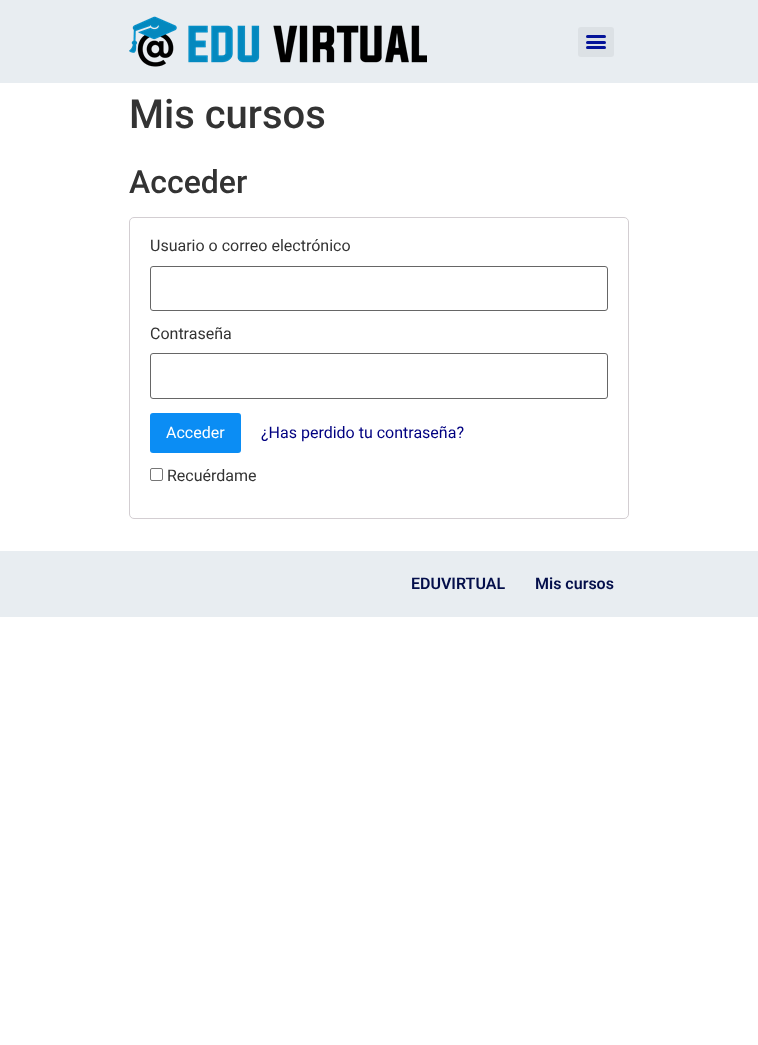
<!DOCTYPE html>
<meta charset="utf-8">
<style>body { margin: 0 } canvas { display: block }</style>
<canvas id="canvas" width="758" height="1045"></canvas>
<script type="module">
  const canvas = document.getElementById("canvas");
  const g = canvas.getContext("2d");
  g.miterLimit = 4;
  g.fontKerning = "normal";
  function drawText(s, x, y, [font, color]) {
    g.font = font;
    g.fillStyle = color;
    g.fillText(s, x, y);
  }
  function fillBox(x, y, w, h, color) {
    g.fillStyle = color;
    g.fillRect(x, y, w, h);
  }
  function fillRounded(x, y, w, h, r, color) {
    g.fillStyle = color;
    g.beginPath();
    g.roundRect(x, y, w, h, r);
    g.fill();
  }
  async function drawPicture(src, x, y, w, h) {
    const img = new Image();
    img.src = src;
    await img.decode();
    g.drawImage(img, x, y, w, h);
  }

  const s1 = ["500 40px Roboto", "#333333"];
  const s2 = ["500 32px Roboto", "#333333"];
  const s3 = ["16px Roboto", "#333333"];
  const s4 = ["16px Roboto", "#FFFFFF"];
  const s5 = ["16px Roboto", "#000080"];
  const s6 = ["600 16px Roboto", "#030E4A"];

  fillBox(0, 0, 758, 1045, "#FFFFFF");
  fillBox(0, 0, 758, 83, "#E8EDF1");
  await drawPicture("pic1.png", 129, 16, 298, 51);
  fillRounded(578, 27, 36, 30, 3, "#DCE1E5");
  fillRounded(586, 41, 20, 3, 1.5, "#041399");
  fillRounded(586, 35, 20, 3, 1.5, "#041399");
  fillRounded(586, 46, 20, 3, 1.5, "#041399");
  drawText("Mis cursos", 129, 128, s1);
  drawText("Acceder", 129, 193, s2);
  g.beginPath();
  g.roundRect(129.5, 217.5, 499, 301, 4.5);
  g.strokeStyle = "#D3CED2";
  g.stroke();
  drawText("Usuario o correo electrónico", 150, 251, s3);
  g.beginPath();
  g.roundRect(150.5, 266.5, 457, 44, 2.5);
  g.strokeStyle = "#666666";
  g.stroke();
  drawText("Contraseña", 150, 339, s3);
  g.beginPath();
  g.roundRect(150.5, 353.5, 457, 45, 2.5);
  g.stroke();
  fillRounded(150, 413, 91, 40, 3, "#0B8DF4");
  drawText("Acceder", 166, 438, s4);
  drawText("¿Has perdido tu contraseña?", 261, 438, s5);
  g.beginPath();
  g.roundRect(150.5, 468.5, 12, 12, 1.5);
  g.strokeStyle = "#767676";
  g.stroke();
  drawText("Recuérdame", 167, 481, s3);
  fillBox(0, 551, 758, 66, "#E8EDF1");
  drawText("EDUVIRTUAL", 411, 589, s6);
  drawText("Mis cursos", 535, 589, s6);
</script>
